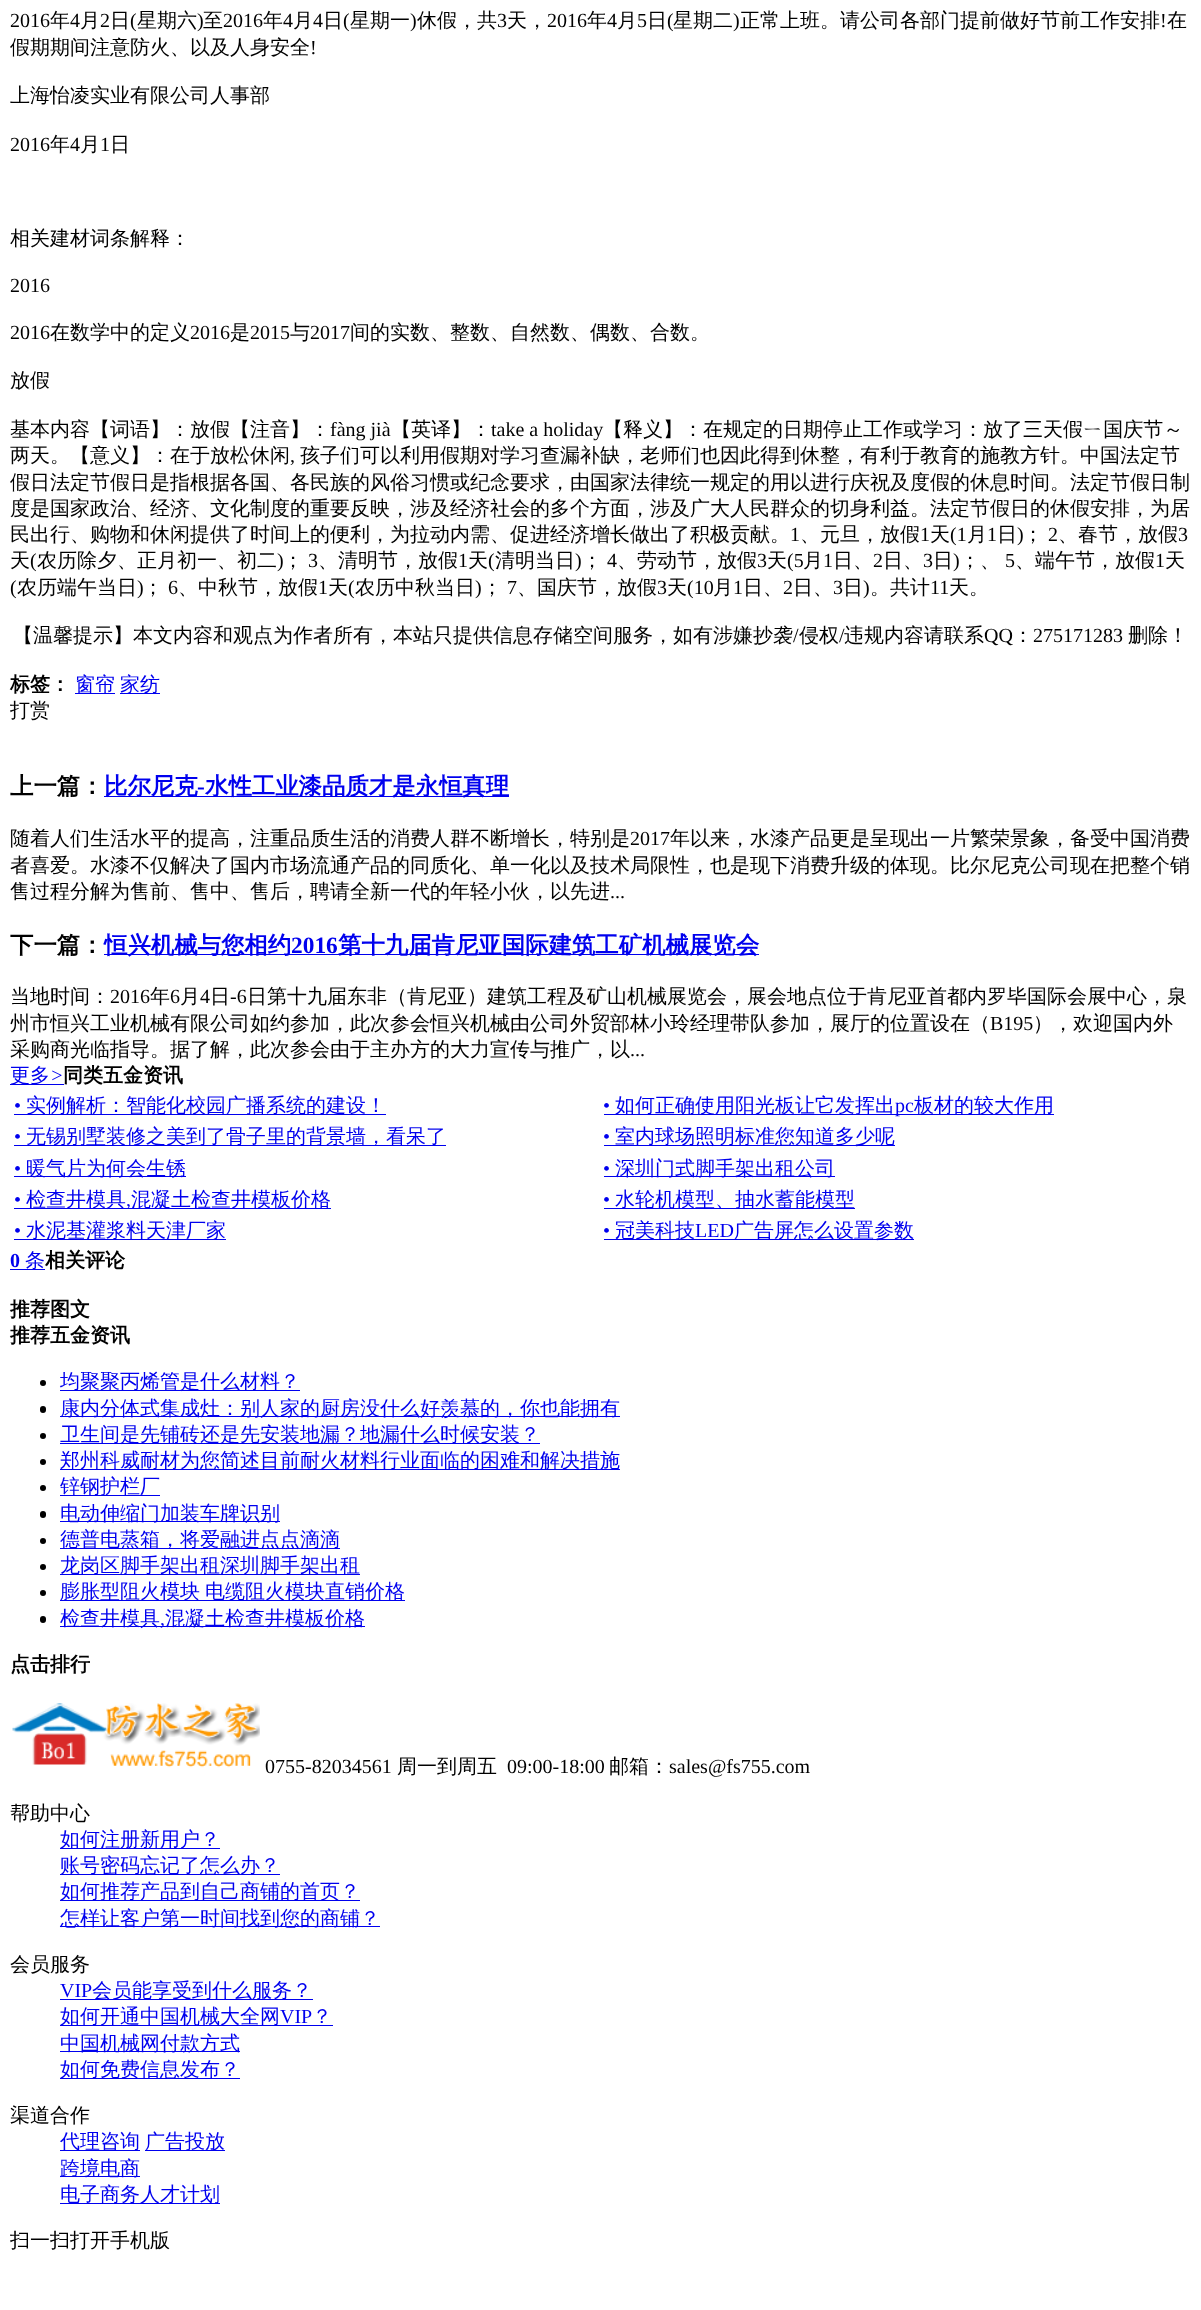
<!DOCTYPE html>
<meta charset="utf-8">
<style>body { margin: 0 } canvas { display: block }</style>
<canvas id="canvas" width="1201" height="2310"></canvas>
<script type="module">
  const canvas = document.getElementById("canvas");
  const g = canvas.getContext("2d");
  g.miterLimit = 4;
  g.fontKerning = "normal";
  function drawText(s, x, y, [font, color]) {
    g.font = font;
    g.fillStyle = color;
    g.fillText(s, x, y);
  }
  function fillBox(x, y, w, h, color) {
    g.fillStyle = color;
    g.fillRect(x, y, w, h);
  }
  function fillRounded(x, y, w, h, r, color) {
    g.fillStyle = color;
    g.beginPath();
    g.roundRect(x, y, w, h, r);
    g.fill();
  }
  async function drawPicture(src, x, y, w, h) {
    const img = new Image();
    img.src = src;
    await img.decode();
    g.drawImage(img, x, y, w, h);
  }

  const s1 = ["20px Liberation Serif", "#000000"];
  const s2 = ["500 20px WenQuanYi Zen Hei", "#000000"];
  const s3 = ["bold 20px WenQuanYi Zen Hei", "#000000"];
  const s4 = ["500 20px WenQuanYi Zen Hei", "#0000EE"];
  const s5 = ["bold 23.4px WenQuanYi Zen Hei", "#000000"];
  const s6 = ["bold 23.4px WenQuanYi Zen Hei", "#0000EE"];
  const s7 = ["bold 23.4px Liberation Serif", "#0000EE"];
  const s8 = ["italic 20px Liberation Serif", "#0000EE"];
  const s9 = ["20px Liberation Serif", "#0000EE"];
  const s10 = ["bold 20px Liberation Serif", "#0000EE"];

  fillBox(0, 0, 1201, 2310, "#FFFFFF");
  drawText("2016", 10, 27, s1);
  drawText("年", 50, 27, s2);
  drawText("4", 70, 27, s1);
  drawText("月", 80, 27, s2);
  drawText("2", 100, 27, s1);
  drawText("日", 110, 27, s2);
  drawText("(", 130, 27, s1);
  drawText("星期六", 137, 27, s2);
  drawText(")", 197, 27, s1);
  drawText("至", 203, 27, s2);
  drawText("2016", 223, 27, s1);
  drawText("年", 263, 27, s2);
  drawText("4", 283, 27, s1);
  drawText("月", 293, 27, s2);
  drawText("4", 313, 27, s1);
  drawText("日", 323, 27, s2);
  drawText("(", 343, 27, s1);
  drawText("星期一", 350, 27, s2);
  drawText(")", 410, 27, s1);
  drawText("休假，共", 417, 27, s2);
  drawText("3", 497, 27, s1);
  drawText("天，", 507, 27, s2);
  drawText("2016", 547, 27, s1);
  drawText("年", 587, 27, s2);
  drawText("4", 607, 27, s1);
  drawText("月", 617, 27, s2);
  drawText("5", 637, 27, s1);
  drawText("日", 647, 27, s2);
  drawText("(", 667, 27, s1);
  drawText("星期二", 673, 27, s2);
  drawText(")", 733, 27, s1);
  drawText("正常上班。请公司各部门提前做好节前工作安排", 740, 27, s2);
  drawText("!", 1160, 27, s1);
  drawText("在", 1167, 27, s2);
  drawText("假期期间注意防火、以及人身安全", 10, 54, s2);
  drawText("!", 310, 54, s1);
  drawText("上海怡凌实业有限公司人事部", 10, 102, s2);
  drawText("2016", 10, 151, s1);
  drawText("年", 50, 151, s2);
  drawText("4", 70, 151, s1);
  drawText("月", 80, 151, s2);
  drawText("1", 100, 151, s1);
  drawText("日", 110, 151, s2);
  drawText("相关建材词条解释：", 10, 245, s2);
  drawText("2016", 10, 292, s1);
  drawText("2016", 10, 339, s1);
  drawText("在数学中的定义", 50, 339, s2);
  drawText("2016", 190, 339, s1);
  drawText("是", 230, 339, s2);
  drawText("2015", 250, 339, s1);
  drawText("与", 290, 339, s2);
  drawText("2017", 310, 339, s1);
  drawText("间的实数、整数、自然数、偶数、合数。", 350, 339, s2);
  drawText("放假", 10, 387, s2);
  drawText("基本内容【词语】：放假【注音】：", 10, 436, s2);
  drawText("fàng jià", 330, 436, s1);
  drawText("【英译】：", 391, 436, s2);
  drawText("take a holiday", 491, 436, s1);
  drawText("【释义】：在规定的日期停止工作或学习：放了三天假ㄧ国庆节～", 603, 436, s2);
  drawText("两天。【意义】：在于放松休闲", 10, 462, s2);
  drawText(",", 290, 462, s1);
  drawText("孩子们可以利用假期对学习查漏补缺，老师们也因此得到休整，有利于教育的施教方针。中国法定节", 300, 462, s2);
  drawText("假日法定节假日是指根据各国、各民族的风俗习惯或纪念要求，由国家法律统一规定的用以进行庆祝及度假的休息时间。法定节假日制", 10, 489, s2);
  drawText("度是国家政治、经济、文化制度的重要反映，涉及经济社会的多个方面，涉及广大人民群众的切身利益。法定节假日的休假安排，为居", 10, 515, s2);
  drawText("民出行、购物和休闲提供了时间上的便利，为拉动内需、促进经济增长做出了积极贡献。", 10, 541, s2);
  drawText("1", 790, 541, s1);
  drawText("、元旦，放假", 800, 541, s2);
  drawText("1", 920, 541, s1);
  drawText("天", 930, 541, s2);
  drawText("(1", 950, 541, s1);
  drawText("月", 967, 541, s2);
  drawText("1", 987, 541, s1);
  drawText("日", 997, 541, s2);
  drawText(")", 1017, 541, s1);
  drawText("；", 1023, 541, s2);
  drawText("2", 1048, 541, s1);
  drawText("、春节，放假", 1058, 541, s2);
  drawText("3", 1178, 541, s1);
  drawText("天", 10, 567, s2);
  drawText("(", 30, 567, s1);
  drawText("农历除夕、正月初一、初二", 37, 567, s2);
  drawText(")", 277, 567, s1);
  drawText("；", 283, 567, s2);
  drawText("3", 308, 567, s1);
  drawText("、清明节，放假", 318, 567, s2);
  drawText("1", 458, 567, s1);
  drawText("天", 468, 567, s2);
  drawText("(", 488, 567, s1);
  drawText("清明当日", 495, 567, s2);
  drawText(")", 575, 567, s1);
  drawText("；", 582, 567, s2);
  drawText("4", 607, 567, s1);
  drawText("、劳动节，放假", 617, 567, s2);
  drawText("3", 757, 567, s1);
  drawText("天", 767, 567, s2);
  drawText("(5", 787, 567, s1);
  drawText("月", 803, 567, s2);
  drawText("1", 823, 567, s1);
  drawText("日、", 833, 567, s2);
  drawText("2", 873, 567, s1);
  drawText("日、", 883, 567, s2);
  drawText("3", 923, 567, s1);
  drawText("日", 933, 567, s2);
  drawText(")", 953, 567, s1);
  drawText("；、", 960, 567, s2);
  drawText("5", 1005, 567, s1);
  drawText("、端午节，放假", 1015, 567, s2);
  drawText("1", 1155, 567, s1);
  drawText("天", 1165, 567, s2);
  drawText("(", 10, 594, s1);
  drawText("农历端午当日", 17, 594, s2);
  drawText(")", 137, 594, s1);
  drawText("；", 143, 594, s2);
  drawText("6", 168, 594, s1);
  drawText("、中秋节，放假", 178, 594, s2);
  drawText("1", 318, 594, s1);
  drawText("天", 328, 594, s2);
  drawText("(", 348, 594, s1);
  drawText("农历中秋当日", 355, 594, s2);
  drawText(")", 475, 594, s1);
  drawText("；", 482, 594, s2);
  drawText("7", 507, 594, s1);
  drawText("、国庆节，放假", 517, 594, s2);
  drawText("3", 657, 594, s1);
  drawText("天", 667, 594, s2);
  drawText("(10", 687, 594, s1);
  drawText("月", 713, 594, s2);
  drawText("1", 733, 594, s1);
  drawText("日、", 743, 594, s2);
  drawText("2", 783, 594, s1);
  drawText("日、", 793, 594, s2);
  drawText("3", 833, 594, s1);
  drawText("日", 843, 594, s2);
  drawText(")", 863, 594, s1);
  drawText("。共计", 870, 594, s2);
  drawText("11", 930, 594, s1);
  drawText("天。", 949, 594, s2);
  drawText("【温馨提示】本文内容和观点为作者所有，本站只提供信息存储空间服务，如有涉嫌抄袭", 13, 642, s2);
  drawText("/", 793, 642, s1);
  drawText("侵权", 799, 642, s2);
  drawText("/", 839, 642, s1);
  drawText("违规内容请联系", 844, 642, s2);
  drawText("QQ", 984, 642, s1);
  drawText("：", 1013, 642, s2);
  drawText("275171283", 1033, 642, s1);
  drawText("删除！", 1128, 642, s2);
  drawText("标签：", 10, 691, s3);
  fillBox(75, 693, 40, 1, "#0000EE");
  drawText("窗帘", 75, 691, s4);
  fillBox(120, 693, 40, 1, "#0000EE");
  drawText("家纺", 120, 691, s4);
  drawText("打赏", 10, 717, s2);
  drawText("上一篇：", 10, 794, s5);
  fillBox(104, 796, 405, 1, "#0000EE");
  drawText("比尔尼克", 104, 794, s6);
  drawText("-", 197, 794, s7);
  drawText("水性工业漆品质才是永恒真理", 205, 794, s6);
  drawText("随着人们生活水平的提高，注重品质生活的消费人群不断增长，特别是", 10, 845, s2);
  drawText("2017", 630, 845, s1);
  drawText("年以来，水漆产品更是呈现出一片繁荣景象，备受中国消费", 670, 845, s2);
  drawText("者喜爱。水漆不仅解决了国内市场流通产品的同质化、单一化以及技术局限性，也是现下消费升级的体现。比尔尼克公司现在把整个销", 10, 872, s2);
  drawText("售过程分解为售前、售中、售后，聘请全新一代的年轻小伙，以先进", 10, 898, s2);
  drawText("...", 610, 898, s1);
  drawText("下一篇：", 10, 953, s5);
  fillBox(104, 954, 655, 1, "#0000EE");
  drawText("恒兴机械与您相约", 104, 953, s6);
  drawText("2016", 291, 953, s7);
  drawText("第十九届肯尼亚国际建筑工矿机械展览会", 338, 953, s6);
  drawText("当地时间：", 10, 1003, s2);
  drawText("2016", 110, 1003, s1);
  drawText("年", 150, 1003, s2);
  drawText("6", 170, 1003, s1);
  drawText("月", 180, 1003, s2);
  drawText("4", 200, 1003, s1);
  drawText("日", 210, 1003, s2);
  drawText("-6", 230, 1003, s1);
  drawText("日第十九届东非（肯尼亚）建筑工程及矿山机械展览会，展会地点位于肯尼亚首都内罗毕国际会展中心，泉", 247, 1003, s2);
  drawText("州市恒兴工业机械有限公司如约参加，此次参会恒兴机械由公司外贸部林小玲经理带队参加，展厅的位置设在（", 10, 1030, s2);
  drawText("B195", 990, 1030, s1);
  drawText("），欢迎国内外", 1033, 1030, s2);
  drawText("采购商光临指导。据了解，此次参会由于主办方的大力宣传与推广，以", 10, 1056, s2);
  drawText("...", 630, 1056, s1);
  fillBox(10, 1084, 54, 1, "#0000EE");
  drawText("更多", 10, 1082, s4);
  drawText(">", 50, 1082, s8);
  drawText("同类五金资讯", 63, 1082, s3);
  drawText("•", 14, 1112, s9);
  fillBox(14, 1114, 372, 1, "#0000EE");
  drawText("实例解析：智能化校园广播系统的建设！", 26, 1112, s4);
  drawText("•", 603, 1112, s9);
  fillBox(604, 1114, 450, 1, "#0000EE");
  drawText("如何正确使用阳光板让它发挥出", 615, 1112, s4);
  drawText("pc", 895, 1112, s9);
  drawText("板材的较大作用", 914, 1112, s4);
  drawText("•", 14, 1143, s9);
  fillBox(14, 1145, 432, 1, "#0000EE");
  drawText("无锡别墅装修之美到了骨子里的背景墙，看呆了", 26, 1143, s4);
  drawText("•", 603, 1143, s9);
  fillBox(604, 1145, 291, 1, "#0000EE");
  drawText("室内球场照明标准您知道多少呢", 615, 1143, s4);
  drawText("•", 14, 1175, s9);
  fillBox(14, 1176, 172, 1, "#0000EE");
  drawText("暖气片为何会生锈", 26, 1175, s4);
  drawText("•", 603, 1175, s9);
  fillBox(604, 1176, 231, 1, "#0000EE");
  drawText("深圳门式脚手架出租公司", 615, 1175, s4);
  drawText("•", 14, 1206, s9);
  fillBox(14, 1208, 317, 1, "#0000EE");
  drawText("检查井模具", 26, 1206, s4);
  drawText("混凝土检查井模板价格", 131, 1206, s4);
  drawText(",", 126, 1206, s9);
  drawText("•", 603, 1206, s9);
  fillBox(604, 1208, 251, 1, "#0000EE");
  drawText("水轮机模型、抽水蓄能模型", 615, 1206, s4);
  drawText("•", 14, 1237, s9);
  fillBox(14, 1239, 212, 1, "#0000EE");
  drawText("水泥基灌浆料天津厂家", 26, 1237, s4);
  drawText("•", 603, 1237, s9);
  fillBox(604, 1239, 310, 1, "#0000EE");
  drawText("冠美科技", 615, 1237, s4);
  drawText("LED", 695, 1237, s9);
  drawText("广告屏怎么设置参数", 734, 1237, s4);
  drawText("0", 10, 1267, s10);
  fillBox(10, 1269, 35, 1, "#0000EE");
  drawText("条", 25, 1267, s4);
  drawText("相关评论", 45, 1267, s3);
  drawText("推荐图文", 10, 1316, s3);
  drawText("推荐五金资讯", 10, 1342, s3);
  g.beginPath();
  g.arc(43, 1383, 3, 0, Math.PI * 2);
  g.fill();
  fillBox(60, 1390, 240, 1, "#0000EE");
  drawText("均聚聚丙烯管是什么材料？", 60, 1388, s4);
  fillRounded(40, 1406, 6, 7, 3, "#000000");
  fillBox(60, 1416, 560, 1, "#0000EE");
  drawText("康内分体式集成灶：别人家的厨房没什么好羡慕的，你也能拥有", 60, 1415, s4);
  g.fillStyle = "#000000";
  g.beginPath();
  g.arc(43, 1436, 3, 0, Math.PI * 2);
  g.fill();
  fillBox(60, 1443, 480, 1, "#0000EE");
  drawText("卫生间是先铺砖还是先安装地漏？地漏什么时候安装？", 60, 1441, s4);
  g.fillStyle = "#000000";
  g.beginPath();
  g.arc(43, 1462, 3, 0, Math.PI * 2);
  g.fill();
  fillBox(60, 1469, 560, 1, "#0000EE");
  drawText("郑州科威耐材为您简述目前耐火材料行业面临的困难和解决措施", 60, 1467, s4);
  g.fillStyle = "#000000";
  g.beginPath();
  g.arc(43, 1488, 3, 0, Math.PI * 2);
  g.fill();
  fillBox(60, 1495, 100, 1, "#0000EE");
  drawText("锌钢护栏厂", 60, 1493, s4);
  fillRounded(40, 1511, 6, 7, 3, "#000000");
  fillBox(60, 1521, 220, 1, "#0000EE");
  drawText("电动伸缩门加装车牌识别", 60, 1520, s4);
  g.fillStyle = "#000000";
  g.beginPath();
  g.arc(43, 1541, 3, 0, Math.PI * 2);
  g.fill();
  fillBox(60, 1548, 280, 1, "#0000EE");
  drawText("德普电蒸箱，将爱融进点点滴滴", 60, 1546, s4);
  g.fillStyle = "#000000";
  g.beginPath();
  g.arc(43, 1567, 3, 0, Math.PI * 2);
  g.fill();
  fillBox(60, 1574, 300, 1, "#0000EE");
  drawText("龙岗区脚手架出租深圳脚手架出租", 60, 1572, s4);
  g.fillStyle = "#000000";
  g.beginPath();
  g.arc(43, 1593, 3, 0, Math.PI * 2);
  g.fill();
  fillBox(60, 1600, 345, 1, "#0000EE");
  g.wordSpacing = "-1px";
  drawText("膨胀型阻火模块 电缆阻火模块直销价格", 60, 1598, s4);
  fillRounded(40, 1616, 6, 7, 3, "#000000");
  fillBox(60, 1626, 305, 1, "#0000EE");
  g.wordSpacing = "0px";
  drawText("检查井模具", 60, 1625, s4);
  drawText("混凝土检查井模板价格", 165, 1625, s4);
  drawText(",", 160, 1625, s9);
  drawText("点击排行", 10, 1671, s3);
  await drawPicture("pic1.png", 12, 1703, 248, 65);
  drawText("0755-82034561", 265, 1773, s1);
  drawText("周一到周五", 397, 1773, s2);
  drawText("09:00-18:00", 507, 1773, s1);
  drawText("邮箱：", 609, 1773, s2);
  drawText("sales@fs755.com", 669, 1773, s1);
  drawText("帮助中心", 10, 1820, s2);
  fillBox(60, 1848, 160, 1, "#0000EE");
  drawText("如何注册新用户？", 60, 1846, s4);
  fillBox(60, 1874, 220, 1, "#0000EE");
  drawText("账号密码忘记了怎么办？", 60, 1872, s4);
  fillBox(60, 1900, 300, 1, "#0000EE");
  drawText("如何推荐产品到自己商铺的首页？", 60, 1898, s4);
  fillBox(60, 1926, 320, 1, "#0000EE");
  drawText("怎样让客户第一时间找到您的商铺？", 60, 1925, s4);
  drawText("会员服务", 10, 1971, s2);
  drawText("VIP", 60, 1997, s9);
  fillBox(60, 1999, 253, 1, "#0000EE");
  drawText("会员能享受到什么服务？", 92, 1997, s4);
  fillBox(60, 2025, 273, 1, "#0000EE");
  drawText("如何开通中国机械大全网", 60, 2023, s4);
  drawText("VIP", 280, 2023, s9);
  drawText("？", 312, 2023, s4);
  fillBox(60, 2051, 180, 1, "#0000EE");
  drawText("中国机械网付款方式", 60, 2050, s4);
  fillBox(60, 2078, 180, 1, "#0000EE");
  drawText("如何免费信息发布？", 60, 2076, s4);
  drawText("渠道合作", 10, 2122, s2);
  fillBox(60, 2150, 80, 1, "#0000EE");
  drawText("代理咨询", 60, 2148, s4);
  fillBox(145, 2150, 80, 1, "#0000EE");
  drawText("广告投放", 145, 2148, s4);
  fillBox(60, 2176, 80, 1, "#0000EE");
  drawText("跨境电商", 60, 2175, s4);
  fillBox(60, 2203, 160, 1, "#0000EE");
  drawText("电子商务人才计划", 60, 2201, s4);
  drawText("扫一扫打开手机版", 10, 2247, s2);
</script>
